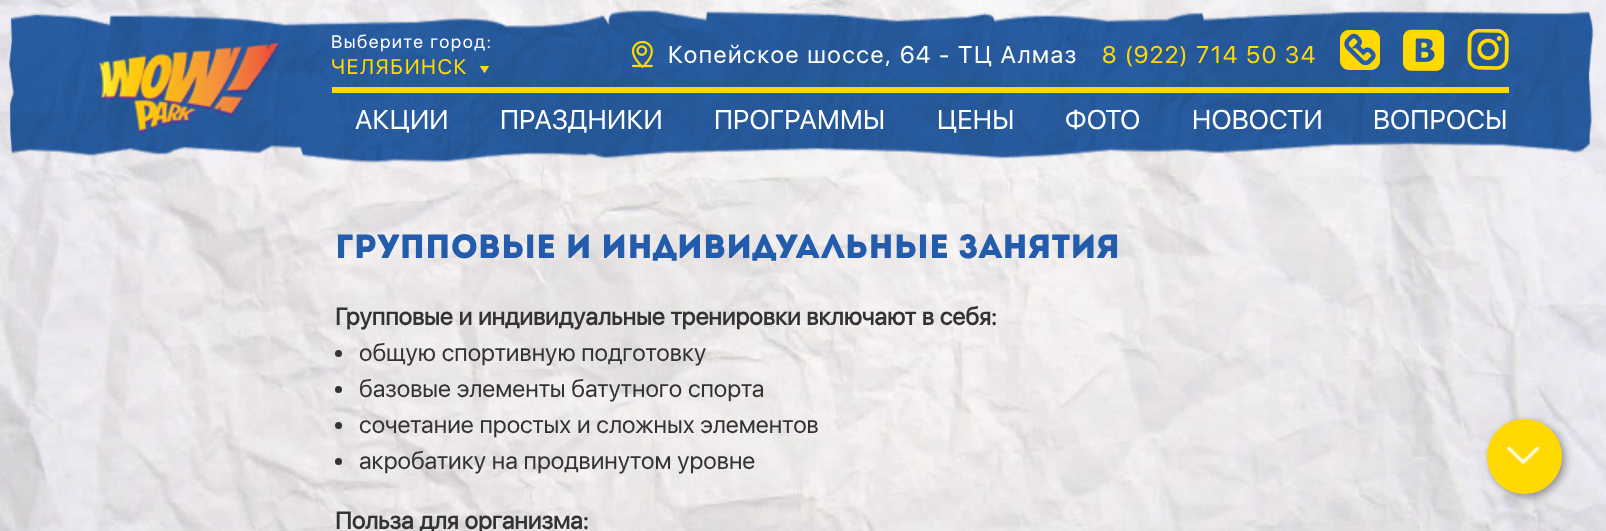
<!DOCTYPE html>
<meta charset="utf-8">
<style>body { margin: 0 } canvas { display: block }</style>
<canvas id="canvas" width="1606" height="531"></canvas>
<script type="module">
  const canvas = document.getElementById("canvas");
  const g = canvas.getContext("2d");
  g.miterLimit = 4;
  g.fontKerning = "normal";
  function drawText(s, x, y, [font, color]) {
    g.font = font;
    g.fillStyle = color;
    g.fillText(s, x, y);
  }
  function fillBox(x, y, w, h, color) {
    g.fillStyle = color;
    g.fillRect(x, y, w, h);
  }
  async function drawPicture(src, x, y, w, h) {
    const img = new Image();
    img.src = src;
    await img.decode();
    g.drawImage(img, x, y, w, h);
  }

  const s1 = ["18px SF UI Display", "#FFFFFF"];
  const s2 = ["21px SF UI Display", "#FFD901"];
  const s3 = ["24px SF UI Display", "#FFFFFF"];
  const s4 = ["24px SF UI Display", "#FFD901"];
  const s5 = ["27px SF UI Display", "#FFFFFF"];
  const s6 = ["33.6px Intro", "#235CAC"];
  const s7 = ["bold 24px SF UI Display", "#333333"];
  const s8 = ["24px SF UI Display", "#333333"];

  fillBox(0, 0, 1606, 531, "#FFFFFF");
  await drawPicture("pic1.png", 0, 0, 1606, 531);
  await drawPicture("pic2.png", 8, 10, 1586, 154);
  await drawPicture("pic3.png", 99, 42, 181, 92);
  g.letterSpacing = "1.5px";
  drawText("Выберите город:", 331, 48, s1);
  drawText("ЧЕЛЯБИНСК", 331, 74, s2);
  g.font = "30px SF UI Display";
  g.save();
  g.translate(476, 62);
  g.rotate(90 * Math.PI / 180);
  g.fillText("‣", 0, 0);
  g.restore();
  await drawPicture("pic4.png", 632, 41, 21, 27);
  drawText("Копейское шоссе, 64 - ТЦ Алмаз", 668, 63, s3);
  await drawPicture("pic5.png", 1340, 30, 40, 40);
  drawText("8 (922) 714 50 34", 1102, 63, s4);
  await drawPicture("pic6.png", 1403, 29, 42, 42);
  await drawPicture("pic7.png", 1467, 29, 42, 41);
  fillBox(332, 87, 1177, 6, "#FFD901");
  g.letterSpacing = "0.25px";
  drawText("АКЦИИ", 355, 129, s5);
  drawText("ПРАЗДНИКИ", 500, 129, s5);
  drawText("ПРОГРАММЫ", 714, 129, s5);
  drawText("ЦЕНЫ", 937, 129, s5);
  drawText("ФОТО", 1065, 129, s5);
  drawText("НОВОСТИ", 1192, 129, s5);
  drawText("ВОПРОСЫ", 1373, 129, s5);
  g.letterSpacing = "0px";
  drawText("ГРУППОВЫЕ И ИНДИВИДУАЛЬНЫЕ ЗАНЯТИЯ", 335, 258, s6);
  drawText("Групповые и индивидуальные тренировки включают в себя:", 335, 325, s7);
  g.beginPath();
  g.arc(338.5, 353.5, 3.5, 0, Math.PI * 2);
  g.fill();
  drawText("общую спортивную подготовку", 359, 361, s8);
  g.beginPath();
  g.arc(338.5, 389.5, 3.5, 0, Math.PI * 2);
  g.fill();
  drawText("базовые элементы батутного спорта", 359, 397, s8);
  g.beginPath();
  g.arc(338.5, 425.5, 3.5, 0, Math.PI * 2);
  g.fill();
  drawText("сочетание простых и сложных элементов", 359, 433, s8);
  g.beginPath();
  g.arc(338.5, 461.5, 3.5, 0, Math.PI * 2);
  g.fill();
  drawText("акробатику на продвинутом уровне", 359, 469, s8);
  drawText("Польза для организма:", 335, 529, s7);
  g.fillStyle = "rgba(0, 0, 0, 0.4)";
  g.filter = "blur(4.5px)";
  g.beginPath();
  g.roundRect(1490, 422, 75, 75, 37.5);
  g.fill();
  g.filter = "none";
  g.fillStyle = "#FFD901";
  g.beginPath();
  g.arc(1524.5, 456.5, 37.5, 0, Math.PI * 2);
  g.fill();
  await drawPicture("pic8.png", 1506, 445, 35, 20);
</script>
